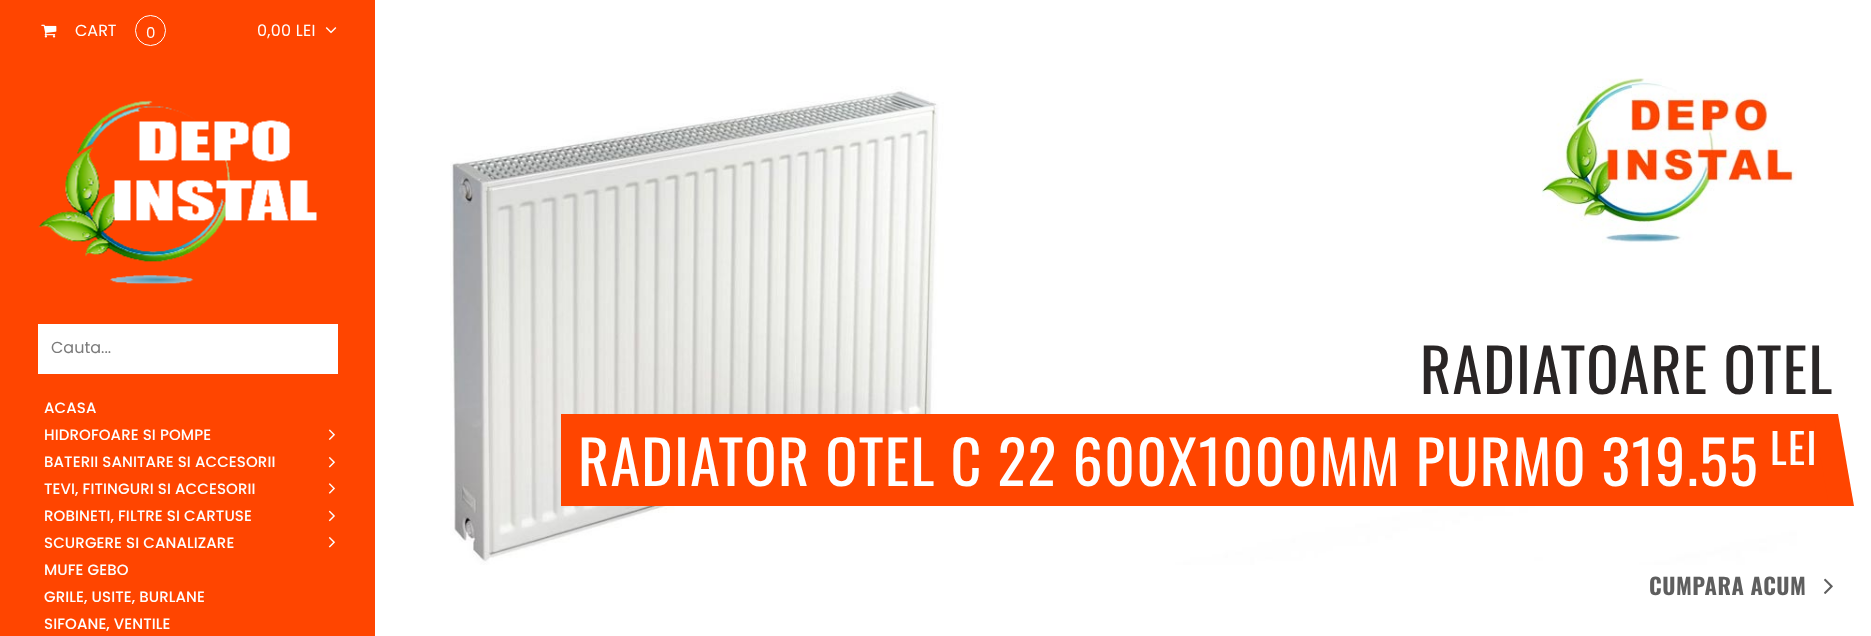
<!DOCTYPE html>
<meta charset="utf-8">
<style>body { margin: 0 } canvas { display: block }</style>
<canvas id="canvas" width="1871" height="636"></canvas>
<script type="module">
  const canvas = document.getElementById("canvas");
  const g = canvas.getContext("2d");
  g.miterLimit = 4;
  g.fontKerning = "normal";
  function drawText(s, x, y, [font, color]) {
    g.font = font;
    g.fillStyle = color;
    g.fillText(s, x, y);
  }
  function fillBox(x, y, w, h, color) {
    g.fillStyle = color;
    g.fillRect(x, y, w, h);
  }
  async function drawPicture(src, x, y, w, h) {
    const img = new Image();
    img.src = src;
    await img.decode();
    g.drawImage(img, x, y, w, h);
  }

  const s1 = ["16px Poppins", "#FFFFFF"];
  const s2 = ["15px Poppins", "#FFFFFF"];
  const s3 = ["16px Poppins", "#7B7B7B"];
  const s4 = ["500 15px Poppins", "#FFFFFF"];
  const s5 = ["60px Oswald", "#292525"];
  const s6 = ["60px Oswald", "#FFFFFF"];
  const s7 = ["42px Oswald", "#FFFFFF"];
  const s8 = ["bold 22.5px Oswald", "#5E5E5E"];

  fillBox(0, 0, 1871, 636, "#FFFFFF");
  fillBox(0, 0, 375, 636, "#FF4500");
  await drawPicture("pic1.png", 41, 24, 16, 14);
  drawText("CART", 75, 36, s1);
  g.beginPath();
  g.arc(150.5, 30.5, 15, 0, Math.PI * 2);
  g.strokeStyle = "#FFFFFF";
  g.stroke();
  drawText("0", 146, 38, s2);
  g.letterSpacing = "0.25px";
  drawText("0,00 LEI", 257, 36, s1);
  await drawPicture("pic2.png", 325, 27, 12, 7);
  await drawPicture("pic3.png", 38, 100, 279, 185);
  fillBox(38, 324, 300, 50, "#FFFFFF");
  g.letterSpacing = "0px";
  drawText("Cauta...", 51, 353, s3);
  g.letterSpacing = "0.1px";
  drawText("ACASA", 44, 413, s4);
  drawText("HIDROFOARE SI POMPE", 44, 440, s4);
  await drawPicture("pic4.png", 328, 429, 7, 11);
  drawText("BATERII SANITARE SI ACCESORII", 44, 467, s4);
  await drawPicture("pic5.png", 328, 457, 7, 11);
  drawText("TEVI, FITINGURI SI ACCESORII", 44, 494, s4);
  await drawPicture("pic6.png", 328, 483, 7, 11);
  drawText("ROBINETI, FILTRE SI CARTUSE", 44, 521, s4);
  await drawPicture("pic7.png", 328, 510, 7, 12);
  drawText("SCURGERE SI CANALIZARE", 44, 548, s4);
  await drawPicture("pic5.png", 328, 537, 7, 11);
  drawText("MUFE GEBO", 44, 575, s4);
  drawText("GRILE, USITE, BURLANE", 44, 602, s4);
  drawText("SIFOANE, VENTILE", 44, 629, s4);
  await drawPicture("pic8.png", 450, 78, 1347, 487);
  g.letterSpacing = "1.25px";
  drawText("RADIATOARE OTEL", 1420, 394, s5);
  fillBox(561, 414, 1268, 92, "#FF4500");
  drawText("RADIATOR OTEL C 22 600X1000MM PURMO 319.55", 578, 486, s6);
  drawText("LEI", 1770, 465, s7);
  g.fillStyle = "#FF4500";
  g.beginPath();
  g.moveTo(1813, 414);
  g.lineTo(1838, 414);
  g.lineTo(1854, 506);
  g.lineTo(1829, 506);
  g.closePath();
  g.fill();
  g.letterSpacing = "0.5px";
  drawText("CUMPARA ACUM", 1649, 595, s8);
  await drawPicture("pic9.png", 1824, 578, 9, 16);
</script>
